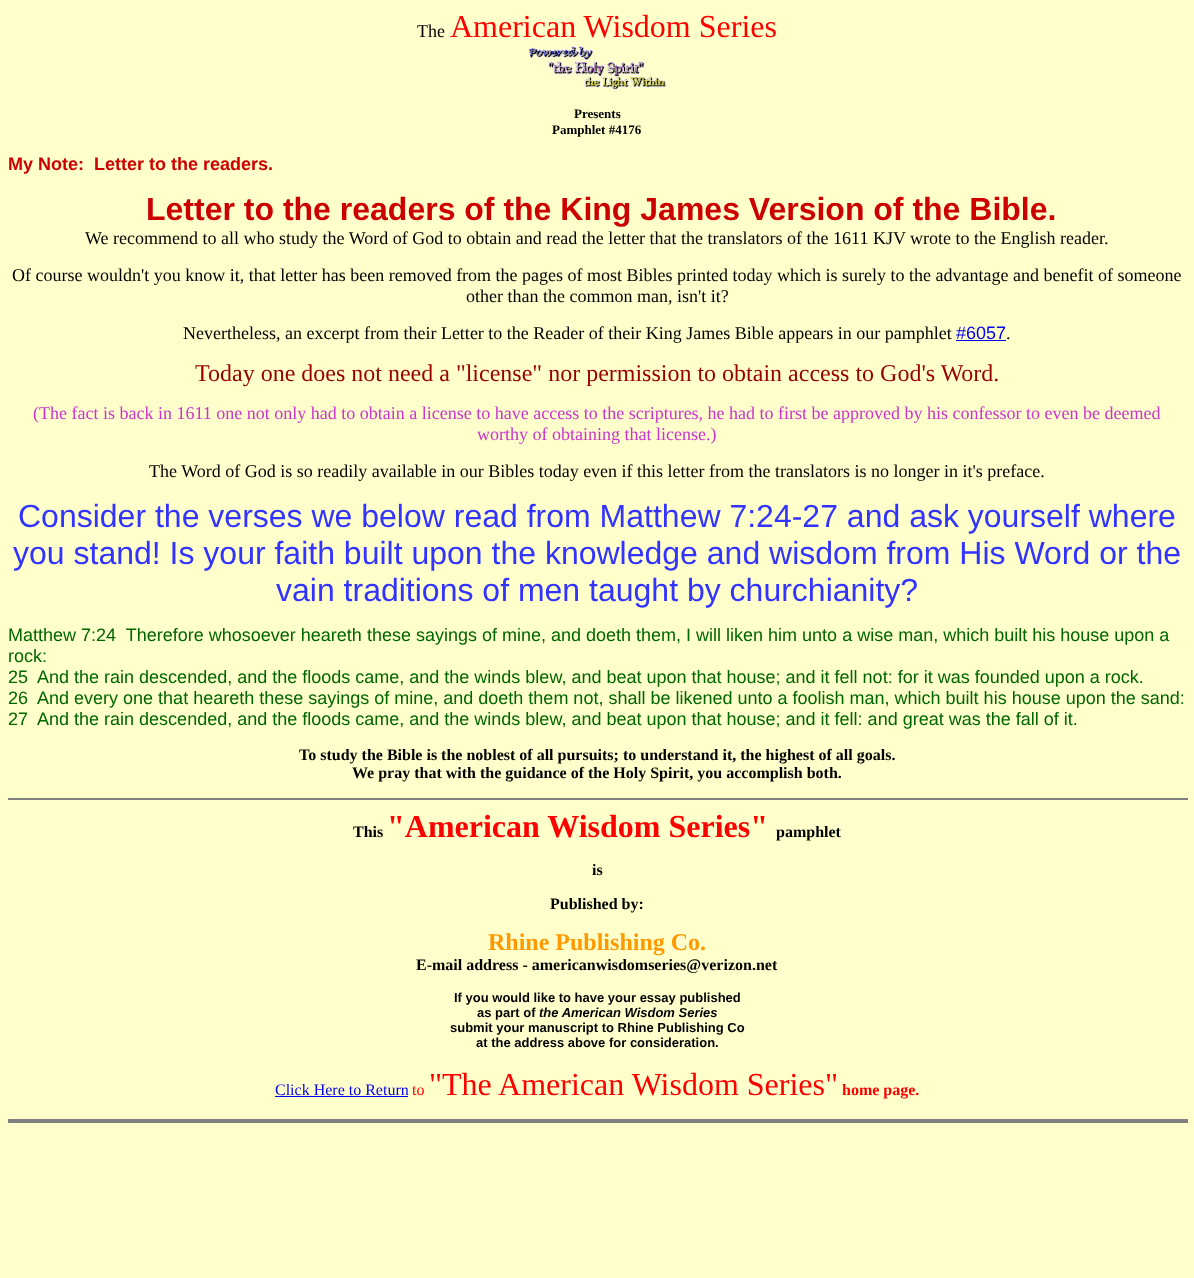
<!DOCTYPE html>
<meta charset="utf-8">
<style>body { margin: 0 } canvas { display: block }</style>
<canvas id="canvas" width="1194" height="1278"></canvas>
<script type="module">
  const canvas = document.getElementById("canvas");
  const g = canvas.getContext("2d");
  g.miterLimit = 4;
  g.fontKerning = "normal";
  function drawText(s, x, y, [font, color]) {
    g.font = font;
    g.fillStyle = color;
    g.fillText(s, x, y);
  }
  function fillBox(x, y, w, h, color) {
    g.fillStyle = color;
    g.fillRect(x, y, w, h);
  }
  async function drawPicture(src, x, y, w, h) {
    const img = new Image();
    img.src = src;
    await img.decode();
    g.drawImage(img, x, y, w, h);
  }

  const s1 = ["18px Liberation Serif", "#000000"];
  const s2 = ["32px Liberation Serif", "#FF0000"];
  const s3 = ["bold 13px Liberation Serif", "#000000"];
  const s4 = ["bold 18px Liberation Sans", "#CC0000"];
  const s5 = ["bold 32px Liberation Sans", "#CC0000"];
  const s6 = ["18px Liberation Sans", "#0000EE"];
  const s7 = ["24px Liberation Serif", "#990000"];
  const s8 = ["18px Liberation Serif", "#CC33CC"];
  const s9 = ["32px Liberation Sans", "#3333FF"];
  const s10 = ["18px Liberation Sans", "#006600"];
  const s11 = ["bold 16px Liberation Serif", "#000000"];
  const s12 = ["bold 32px Liberation Serif", "#FF0000"];
  const s13 = ["bold 24px Liberation Serif", "#FF9900"];
  const s14 = ["bold 13px Liberation Sans", "#000000"];
  const s15 = ["italic bold 13px Liberation Sans", "#000000"];
  const s16 = ["16px Liberation Serif", "#0000EE"];
  const s17 = ["16px Liberation Serif", "#FF0000"];
  const s18 = ["bold 16px Liberation Serif", "#FF0000"];

  fillBox(0, 0, 1194, 1278, "#FFFFCC");
  drawText("The", 417, 37, s1);
  drawText("American Wisdom Series", 450, 37, s2);
  await drawPicture("pic1.png", 529, 46, 138, 44);
  drawText("Presents", 574, 118, s3);
  drawText("Pamphlet #4176", 552, 134, s3);
  drawText("My Note:  Letter to the readers.", 8, 170, s4);
  drawText("Letter to the readers of the King James Version of the Bible.", 146, 220, s5);
  drawText("We recommend to all who study the Word of God to obtain and read the letter that the translators of the 1611 KJV wrote to the English reader.", 85, 244, s1);
  drawText("Of course wouldn't you know it, that letter has been removed from the pages of most Bibles printed today which is surely to the advantage and benefit of someone", 12, 281, s1);
  drawText("other than the common man, isn't it?", 466, 302, s1);
  drawText("Nevertheless, an excerpt from their Letter to the Reader of their King James Bible appears in our pamphlet", 183, 339, s1);
  drawText("#6057", 956, 339, s6);
  drawText(".", 1006, 339, s1);
  fillBox(956, 340, 50, 1, "#0000EE");
  drawText("Today one does not need a \"license\" nor permission to obtain access to God's Word.", 195, 381, s7);
  drawText("(The fact is back in 1611 one not only had to obtain a license to have access to the scriptures, he had to first be approved by his confessor to even be deemed", 33, 419, s8);
  drawText("worthy of obtaining that license.)", 477, 440, s8);
  drawText("The Word of God is so readily available in our Bibles today even if this letter from the translators is no longer in it's preface.", 149, 477, s1);
  drawText("Consider the verses we below read from Matthew 7:24-27 and ask yourself where", 18, 527, s9);
  drawText("you stand! Is your faith built upon the knowledge and wisdom from His Word or the", 13, 564, s9);
  drawText("vain traditions of men taught by churchianity?", 276, 601, s9);
  drawText("Matthew 7:24  Therefore whosoever heareth these sayings of mine, and doeth them, I will liken him unto a wise man, which built his house upon a", 8, 641, s10);
  drawText("rock:", 8, 662, s10);
  drawText("25  And the rain descended, and the floods came, and the winds blew, and beat upon that house; and it fell not: for it was founded upon a rock.", 8, 683, s10);
  drawText("26  And every one that heareth these sayings of mine, and doeth them not, shall be likened unto a foolish man, which built his house upon the sand:", 8, 704, s10);
  drawText("27  And the rain descended, and the floods came, and the winds blew, and beat upon that house; and it fell: and great was the fall of it.", 8, 725, s10);
  drawText("To study the Bible is the noblest of all pursuits; to understand it, the highest of all goals.", 299, 760, s11);
  drawText("We pray that with the guidance of the Holy Spirit, you accomplish both.", 352, 778, s11);
  fillBox(8, 798, 1180, 2, "#808080");
  drawText("This", 353, 837, s11);
  drawText("\"American Wisdom Series\"", 387, 837, s12);
  drawText("pamphlet", 776, 837, s11);
  drawText("is", 592, 875, s11);
  drawText("Published by:", 550, 909, s11);
  drawText("Rhine Publishing Co.", 488, 950, s13);
  drawText("E-mail address - americanwisdomseries@verizon.net", 416, 970, s11);
  drawText("If you would like to have your essay published", 454, 1002, s14);
  drawText("as part of", 477, 1017, s14);
  drawText("the American Wisdom Series", 539, 1017, s15);
  drawText("submit your manuscript to Rhine Publishing Co", 450, 1032, s14);
  drawText("at the address above for consideration.", 476, 1047, s14);
  drawText("Click Here to Return", 275, 1095, s16);
  fillBox(275, 1096, 133, 1, "#0000EE");
  drawText("to", 412, 1095, s17);
  drawText("\"The American Wisdom Series\"", 429, 1095, s2);
  drawText("home page.", 842, 1095, s18);
  fillBox(8, 1119, 1180, 4, "#808080");
</script>
